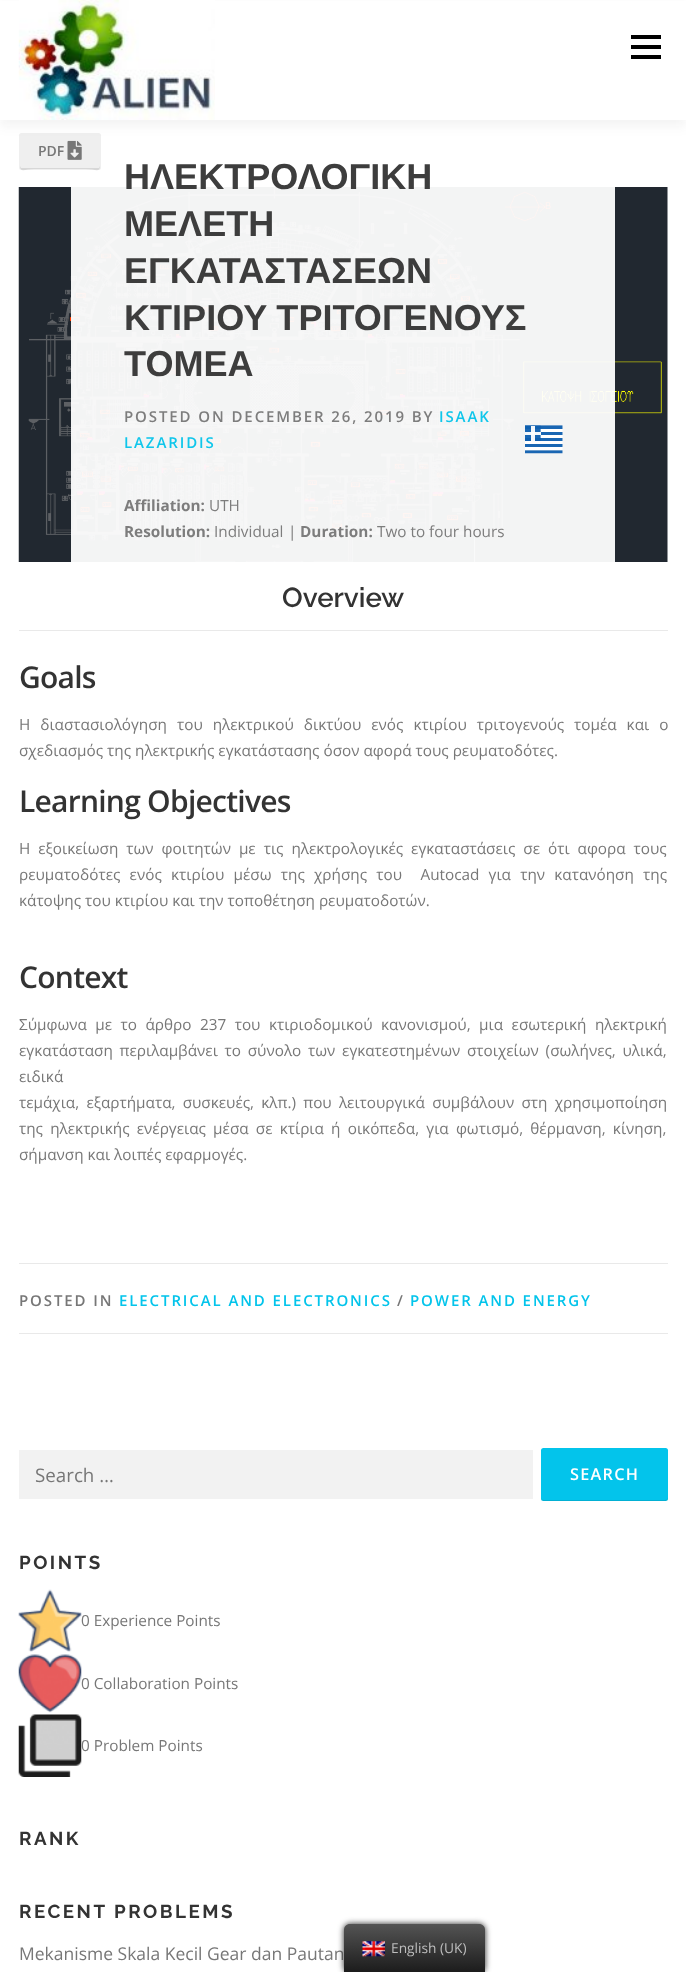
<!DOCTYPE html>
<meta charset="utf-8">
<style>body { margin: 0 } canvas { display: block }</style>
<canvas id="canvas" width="686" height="1972"></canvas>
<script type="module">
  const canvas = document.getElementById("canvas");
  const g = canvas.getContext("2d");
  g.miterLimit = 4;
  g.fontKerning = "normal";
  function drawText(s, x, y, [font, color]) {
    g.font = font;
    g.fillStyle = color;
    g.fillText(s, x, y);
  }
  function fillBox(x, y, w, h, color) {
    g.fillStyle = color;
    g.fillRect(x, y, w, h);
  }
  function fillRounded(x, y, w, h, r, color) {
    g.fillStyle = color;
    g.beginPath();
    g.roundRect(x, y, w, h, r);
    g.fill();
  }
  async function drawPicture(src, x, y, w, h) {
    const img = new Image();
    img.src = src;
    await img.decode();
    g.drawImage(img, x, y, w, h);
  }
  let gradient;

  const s1 = ["600 14px Open Sans", "#777777"];
  const s2 = ["bold 36.1px Liberation Sans", "#3D3D3D"];
  const s3 = ["600 15px Open Sans", "#7D7D7D"];
  const s4 = ["600 15px Open Sans", "#0FC6EB"];
  const s5 = ["bold 15.3px Open Sans", "#7D7D7D"];
  const s6 = ["15.3px Open Sans", "#7D7D7D"];
  const s7 = ["15.3px Open Sans", "#777777"];
  const s8 = ["600 27.5px Raleway", "#333333"];
  const s9 = ["600 30px Open Sans", "#333333"];
  const s10 = ["600 15px Open Sans", "#777777"];
  const s11 = ["600 15px Open Sans", "#03C4EB"];
  const s12 = ["18.75px Open Sans", "#777777"];
  const s13 = ["600 16.25px Open Sans", "#FFFFFF"];
  const s14 = ["bold 18.75px Raleway", "#333333"];
  const s15 = ["17.5px Open Sans", "#777777"];
  const s16 = ["13.75px Open Sans", "#BDBDBD"];

  fillBox(0, 0, 686, 1972, "#FFFFFF");
  fillRounded(19, 133, 82, 37, 2.5, "#EFEFEF");
  await drawPicture("pic2.png", 67, 140, 15, 20);
  g.fillStyle = "rgba(50, 50, 50, 0.06)";
  g.filter = "blur(6px)";
  g.beginPath();
  g.rect(0, 6, 686, 120);
  g.fill();
  g.filter = "none";
  fillBox(0, 1, 686, 119, "#FFFFFF");
  await drawPicture("pic1.png", 18, 0, 197, 120);
  fillBox(631, 45, 30, 4, "#000000");
  fillBox(631, 35, 30, 4, "#000000");
  fillBox(631, 55, 30, 4, "#000000");
  g.fillStyle = "#D7D7D7";
  g.beginPath();
  g.moveTo(20, 166);
  g.bezierCurveTo(20, 173, 25, 169, 34, 169);
  g.lineTo(86, 169);
  g.bezierCurveTo(95, 169, 100, 173, 100, 166);
  g.lineTo(99, 168);
  g.lineTo(21, 168);
  g.closePath();
  g.fill();
  drawText("PDF", 38, 156, s1);
  await drawPicture("pic3.png", 18, 187, 650, 375);
  fillBox(71, 187, 544, 375, "rgba(255, 255, 255, 0.95)");
  drawText("ΗΛΕΚΤΡΟΛΟΓΙΚΗ", 124, 189, s2);
  drawText("ΜΕΛΕΤΗ", 124, 236, s2);
  drawText("ΕΓΚΑΤΑΣΤΑΣΕΩΝ", 124, 283, s2);
  g.wordSpacing = "-1px";
  drawText("ΚΤΙΡΙΟΥ ΤΡΙΤΟΓΕΝΟΥΣ", 124, 330, s2);
  g.wordSpacing = "0px";
  drawText("ΤΟΜΕΑ", 124, 376, s2);
  g.letterSpacing = "1.9px";
  drawText("POSTED ON DECEMBER 26, 2019 BY", 124, 422, s3);
  drawText("ISAAK", 439, 422, s4);
  drawText("LAZARIDIS", 124, 448, s4);
  await drawPicture("pic4.png", 525, 425, 38, 29);
  g.letterSpacing = "0px";
  drawText("Affiliation:", 124, 511, s5);
  drawText("UTH", 209, 511, s6);
  drawText("Resolution:", 124, 537, s5);
  drawText("Individual", 214, 537, s6);
  drawText("|", 288, 537, s7);
  drawText("Duration:", 300, 537, s5);
  drawText("Two to four hours", 377, 537, s6);
  drawText("Overview", 282, 607, s8);
  fillBox(19, 630, 649, 1, "#E9E9E9");
  g.letterSpacing = "-0.75px";
  drawText("Goals", 19, 688, s9);
  g.letterSpacing = "0px";
  g.wordSpacing = "6px";
  drawText("Η διαστασιολόγηση του ηλεκτρικού δικτύου ενός κτιρίου τριτογενούς τομέα και ο", 19, 730, s7);
  g.wordSpacing = "0px";
  drawText("σχεδιασμός της ηλεκτρικής εγκατάστασης όσον αφορά τους ρευματοδότες.", 19, 756, s7);
  g.letterSpacing = "-0.75px";
  drawText("Learning Objectives", 19, 812, s9);
  g.letterSpacing = "0px";
  g.wordSpacing = "4px";
  drawText("Η εξοικείωση των φοιτητών με τις ηλεκτρολογικές εγκαταστάσεις σε ότι αφορα τους", 19, 854, s7);
  g.wordSpacing = "5.25px";
  drawText("ρευματοδότες ενός κτιρίου μέσω της χρήσης του  Autocad για την κατανόηση της", 19, 880, s7);
  g.wordSpacing = "0px";
  drawText("κάτοψης του κτιρίου και την τοποθέτηση ρευματοδοτών.", 19, 906, s7);
  g.letterSpacing = "-0.75px";
  drawText("Context", 19, 988, s9);
  g.letterSpacing = "0px";
  g.wordSpacing = "4.5px";
  drawText("Σύμφωνα με το άρθρο 237 του κτιριοδομικού κανονισμού, μια εσωτερική ηλεκτρική", 19, 1030, s7);
  g.wordSpacing = "2.75px";
  drawText("εγκατάσταση περιλαμβάνει το σύνολο των εγκατεστημένων στοιχείων (σωλήνες, υλικά,", 19, 1056, s7);
  g.wordSpacing = "0px";
  drawText("ειδικά", 19, 1082, s7);
  g.wordSpacing = "3.25px";
  drawText("τεμάχια, εξαρτήματα, συσκευές, κλπ.) που λειτουργικά συμβάλουν στη χρησιμοποίηση", 19, 1108, s7);
  drawText("της ηλεκτρικής ενέργειας μέσα σε κτίρια ή οικόπεδα, για φωτισμό, θέρμανση, κίνηση,", 19, 1134, s7);
  g.wordSpacing = "0px";
  drawText("σήμανση και λοιπές εφαρμογές.", 19, 1160, s7);
  fillBox(19, 1263, 649, 1, "#E9E9E9");
  g.letterSpacing = "1.9px";
  drawText("POSTED IN", 19, 1306, s10);
  drawText("ELECTRICAL AND ELECTRONICS", 119, 1306, s11);
  drawText("/", 397, 1306, s10);
  drawText("POWER AND ENERGY", 410, 1306, s11);
  fillBox(19, 1333, 649, 1, "#E9E9E9");
  fillBox(19, 1450, 514, 49, "#F2F2F2");
  g.letterSpacing = "0px";
  drawText("Search …", 35, 1482, s12);
  fillRounded(541, 1448, 127, 53, 2.5, "#03C4EB");
  g.fillStyle = "rgba(0, 0, 0, 0.1)";
  g.beginPath();
  g.moveTo(541, 1498);
  g.bezierCurveTo(541, 1500, 542, 1501, 544, 1501);
  g.lineTo(666, 1501);
  g.bezierCurveTo(668, 1500, 668, 1499, 668, 1498);
  g.bezierCurveTo(668, 1499, 666, 1500, 665, 1500);
  g.lineTo(544, 1500);
  g.bezierCurveTo(542, 1500, 541, 1499, 541, 1498);
  g.closePath();
  g.fill();
  g.letterSpacing = "1.25px";
  drawText("SEARCH", 570, 1480, s13);
  g.letterSpacing = "2.5px";
  drawText("POINTS", 19, 1569, s14);
  await drawPicture("pic5.png", 18, 1589, 64, 63);
  g.letterSpacing = "0px";
  drawText("0 Experience Points", 81, 1626, s7);
  await drawPicture("pic6.png", 18, 1654, 64, 59);
  drawText("0 Collaboration Points", 81, 1689, s7);
  await drawPicture("pic7.png", 18, 1714, 64, 63);
  drawText("0 Problem Points", 81, 1751, s7);
  g.letterSpacing = "2.5px";
  drawText("RANK", 19, 1845, s14);
  drawText("RECENT PROBLEMS", 19, 1918, s14);
  g.letterSpacing = "0px";
  drawText("Mekanisme Skala Kecil Gear dan Pautan", 19, 1960, s15);
  g.fillStyle = "#212121";
  g.filter = "blur(3px)";
  g.beginPath();
  g.roundRect(344, 1924, 141, 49, 6);
  g.fill();
  g.filter = "none";
  gradient = g.createLinearGradient(414, 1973, 414, 1924);
  gradient.addColorStop(0, "#1B1B1B");
  gradient.addColorStop(1, "#545454");
  g.fillStyle = gradient;
  g.beginPath();
  g.moveTo(350, 1924);
  g.lineTo(479, 1924);
  g.bezierCurveTo(482.5, 1924, 485, 1926.5, 485, 1930);
  g.lineTo(485, 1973);
  g.lineTo(344, 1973);
  g.lineTo(344, 1930);
  g.bezierCurveTo(344, 1926.5, 346.5, 1924, 350, 1924);
  g.closePath();
  g.fill();
  await drawPicture("pic8.png", 362, 1941, 23, 16);
  drawText("English (UK)", 391, 1953, s16);
</script>
